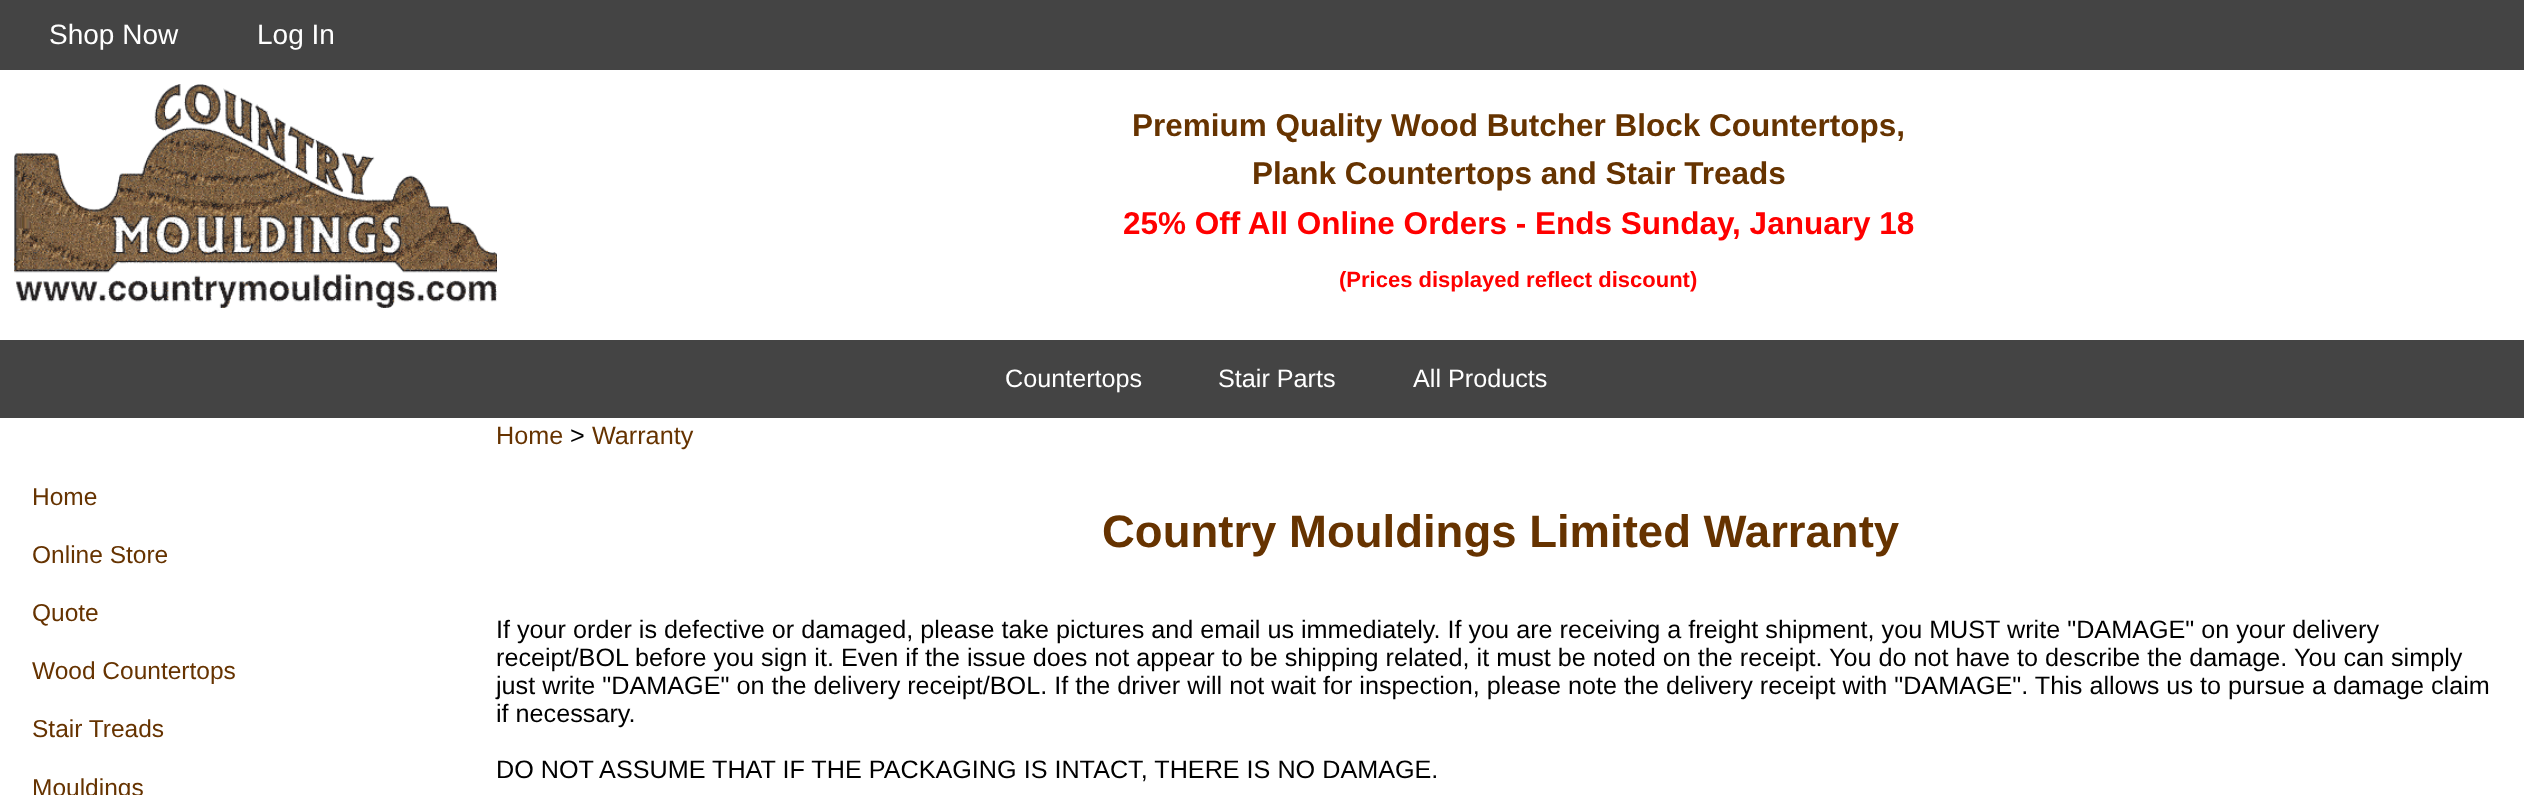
<!DOCTYPE html>
<meta charset="utf-8">
<style>body { margin: 0 } canvas { display: block }</style>
<canvas id="canvas" width="2524" height="795"></canvas>
<script type="module">
  const canvas = document.getElementById("canvas");
  const g = canvas.getContext("2d");
  g.miterLimit = 4;
  g.fontKerning = "normal";
  function drawText(s, x, y, [font, color]) {
    g.font = font;
    g.fillStyle = color;
    g.fillText(s, x, y);
  }
  function fillBox(x, y, w, h, color) {
    g.fillStyle = color;
    g.fillRect(x, y, w, h);
  }
  async function drawPicture(src, x, y, w, h) {
    const img = new Image();
    img.src = src;
    await img.decode();
    g.drawImage(img, x, y, w, h);
  }

  const s1 = ["28px Liberation Sans", "#FFFFFF"];
  const s2 = ["bold 31.5px Liberation Sans", "#663300"];
  const s3 = ["bold 31.5px Liberation Sans", "#FF0000"];
  const s4 = ["bold 22px Liberation Sans", "#FF0000"];
  const s5 = ["25.2px Liberation Sans", "#FFFFFF"];
  const s6 = ["24.5px Liberation Sans", "#663300"];
  const s7 = ["25.2px Liberation Sans", "#663300"];
  const s8 = ["25.2px Liberation Sans", "#000000"];
  const s9 = ["bold 45.5px Liberation Sans", "#663300"];

  fillBox(0, 0, 2524, 795, "#FFFFFF");
  fillBox(0, 0, 2524, 70, "#444444");
  drawText("Shop Now", 49, 44, s1);
  drawText("Log In", 257, 44, s1);
  await drawPicture("pic1.png", 14, 84, 483, 224);
  drawText("Premium Quality Wood Butcher Block Countertops,", 1132, 136, s2);
  drawText("Plank Countertops and Stair Treads", 1252, 184, s2);
  drawText("25% Off All Online Orders - Ends Sunday, January 18", 1123, 234, s3);
  drawText("(Prices displayed reflect discount)", 1339, 287, s4);
  fillBox(0, 340, 2524, 78, "#444444");
  drawText("Countertops", 1005, 387, s5);
  drawText("Stair Parts", 1218, 387, s5);
  drawText("All Products", 1413, 387, s5);
  drawText("Home", 32, 505, s6);
  drawText("Online Store", 32, 563, s6);
  drawText("Quote", 32, 621, s6);
  drawText("Wood Countertops", 32, 679, s6);
  drawText("Stair Treads", 32, 737, s6);
  drawText("Mouldings", 32, 796, s6);
  drawText("Home", 496, 444, s7);
  drawText(">", 570, 444, s8);
  drawText("Warranty", 592, 444, s7);
  drawText("Country Mouldings Limited Warranty", 1102, 547, s9);
  drawText("If your order is defective or damaged, please take pictures and email us immediately. If you are receiving a freight shipment, you MUST write \"DAMAGE\" on your delivery", 496, 638, s8);
  drawText("receipt/BOL before you sign it. Even if the issue does not appear to be shipping related, it must be noted on the receipt. You do not have to describe the damage. You can simply", 496, 666, s8);
  drawText("just write \"DAMAGE\" on the delivery receipt/BOL. If the driver will not wait for inspection, please note the delivery receipt with \"DAMAGE\". This allows us to pursue a damage claim", 496, 694, s8);
  drawText("if necessary.", 496, 722, s8);
  drawText("DO NOT ASSUME THAT IF THE PACKAGING IS INTACT, THERE IS NO DAMAGE.", 496, 778, s8);
</script>
